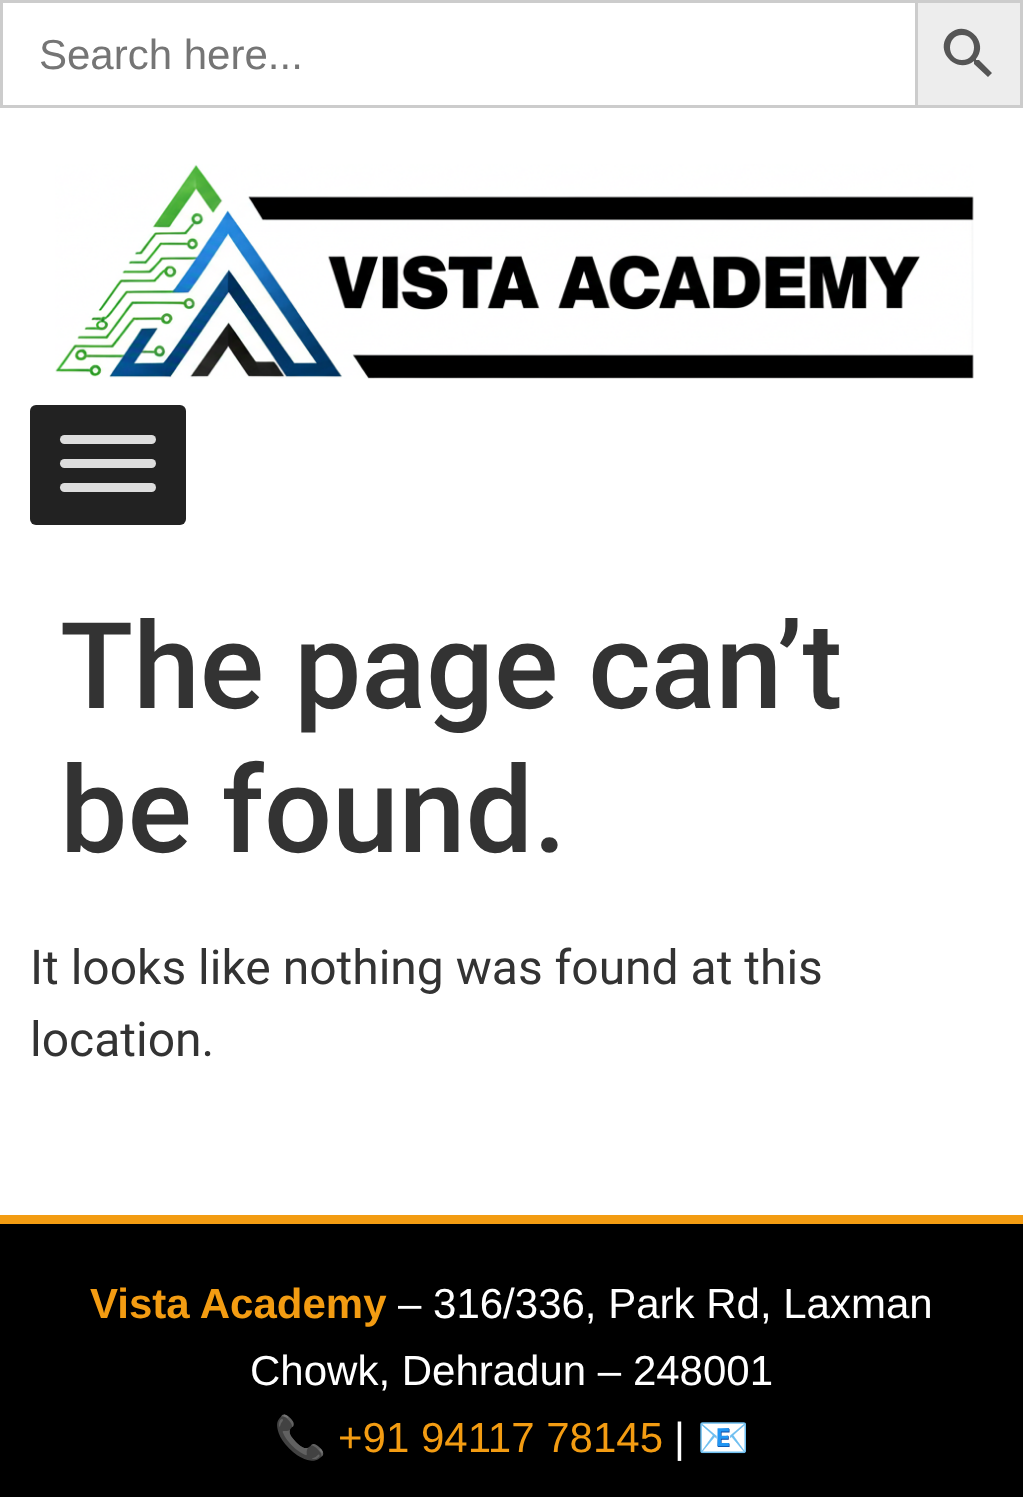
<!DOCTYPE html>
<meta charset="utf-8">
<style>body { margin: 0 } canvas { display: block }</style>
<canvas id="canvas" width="1023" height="1497"></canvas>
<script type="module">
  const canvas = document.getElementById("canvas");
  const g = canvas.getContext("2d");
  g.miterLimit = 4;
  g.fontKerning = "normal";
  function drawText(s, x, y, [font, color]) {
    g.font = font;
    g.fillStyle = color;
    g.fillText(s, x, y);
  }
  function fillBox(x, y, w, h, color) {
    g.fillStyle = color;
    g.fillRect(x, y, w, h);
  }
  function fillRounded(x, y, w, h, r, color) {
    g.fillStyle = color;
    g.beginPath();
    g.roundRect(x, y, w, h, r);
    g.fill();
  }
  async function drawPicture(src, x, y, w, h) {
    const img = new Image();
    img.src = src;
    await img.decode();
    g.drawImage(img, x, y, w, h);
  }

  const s1 = ["42px Liberation Sans", "#757575"];
  const s2 = ["500 120px Roboto", "#333333"];
  const s3 = ["48px Roboto", "#333333"];
  const s4 = ["bold 42px Liberation Sans", "#F39C12"];
  const s5 = ["42px Liberation Sans", "#FFFFFF"];
  const s6 = ["42px Noto Color Emoji", "#FFFFFF"];
  const s7 = ["42px Liberation Sans", "#F39C12"];

  fillBox(0, 0, 1023, 1497, "#FFFFFF");
  fillBox(0, 0, 915, 3, "#CCCCCC");
  fillBox(0, 105, 915, 3, "#CCCCCC");
  fillBox(0, 0, 3, 108, "#CCCCCC");
  drawText("Search here...", 39, 69, s1);
  g.fillStyle = "#EDEDED";
  g.beginPath();
  g.rect(916.5, 1.5, 105, 105);
  g.fill();
  g.strokeStyle = "#CCCCCC";
  g.lineWidth = 3;
  g.stroke();
  g.fillStyle = "#555555";
  g.beginPath();
  g.moveTo(979, 60);
  g.lineTo(976, 60);
  g.lineTo(976, 59);
  g.bezierCurveTo(990, 42, 966, 18, 949, 34);
  g.bezierCurveTo(933, 51, 957, 75, 974, 61);
  g.lineTo(974, 64);
  g.lineTo(988, 77);
  g.lineTo(992, 73);
  g.closePath();
  g.moveTo(962, 60);
  g.bezierCurveTo(946, 60, 946, 35, 962, 35);
  g.bezierCurveTo(978, 35, 978, 60, 962, 60);
  g.closePath();
  g.fill();
  await drawPicture("pic1.png", 55, 164, 919, 215);
  fillRounded(30, 405, 156, 120, 6, "#222222");
  fillRounded(60, 435, 96, 9, 4.5, "#DDDDDD");
  fillRounded(60, 459, 96, 9, 4.5, "#DDDDDD");
  fillRounded(60, 483, 96, 9, 4.5, "#DDDDDD");
  drawText("The page can’t", 60, 708, s2);
  drawText("be found.", 60, 852, s2);
  drawText("It looks like nothing was found at this", 30, 984, s3);
  drawText("location.", 30, 1056, s3);
  fillBox(0, 1224, 1023, 273, "#000000");
  fillBox(0, 1215, 1023, 9, "#F39C12");
  drawText("Vista Academy", 90, 1318, s4);
  drawText("– 316/336, Park Rd, Laxman", 398, 1318, s5);
  drawText("Chowk, Dehradun – 248001", 250, 1385, s5);
  drawText("📞", 274, 1452, s6);
  drawText("+91 94117 78145", 338, 1452, s7);
  drawText("|", 674, 1452, s5);
  drawText("📧", 697, 1452, s6);
</script>
